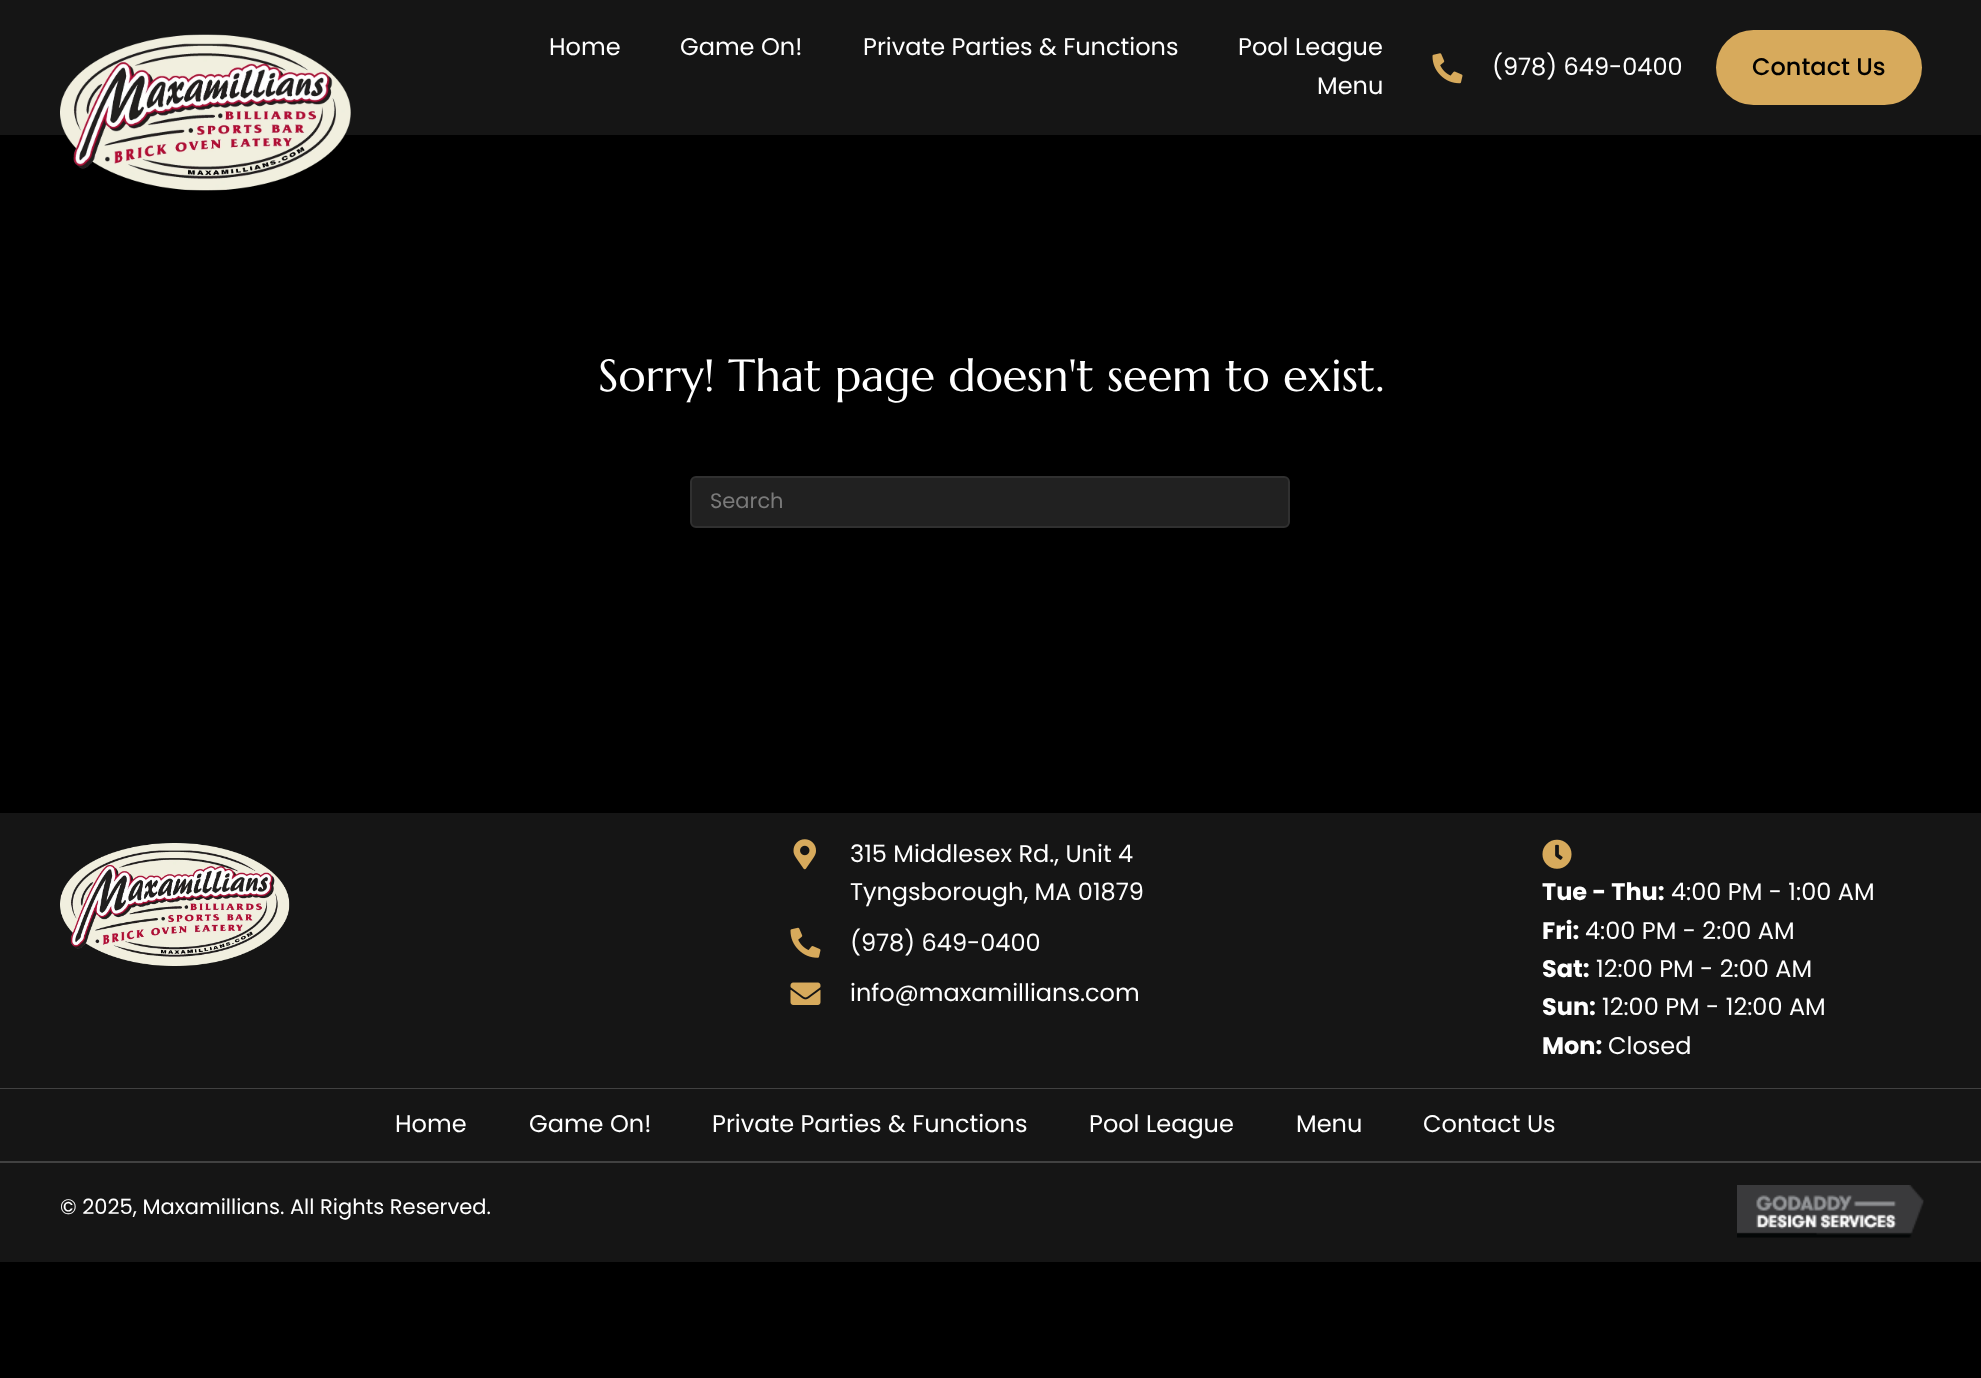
<!DOCTYPE html>
<meta charset="utf-8">
<style>body { margin: 0 } canvas { display: block }</style>
<canvas id="canvas" width="1981" height="1378"></canvas>
<script type="module">
  const canvas = document.getElementById("canvas");
  const g = canvas.getContext("2d");
  g.miterLimit = 4;
  g.fontKerning = "normal";
  function drawText(s, x, y, [font, color]) {
    g.font = font;
    g.fillStyle = color;
    g.fillText(s, x, y);
  }
  function fillBox(x, y, w, h, color) {
    g.fillStyle = color;
    g.fillRect(x, y, w, h);
  }
  function fillRounded(x, y, w, h, r, color) {
    g.fillStyle = color;
    g.beginPath();
    g.roundRect(x, y, w, h, r);
    g.fill();
  }
  async function drawPicture(src, x, y, w, h) {
    const img = new Image();
    img.src = src;
    await img.decode();
    g.drawImage(img, x, y, w, h);
  }

  const s1 = ["24px Poppins", "#FFFFFF"];
  const s2 = ["500 24px Poppins", "#000000"];
  const s3 = ["45px Marcellus", "#FFFFFF"];
  const s4 = ["21px Poppins", "#7A7A7A"];
  const s5 = ["bold 24px Poppins", "#FFFFFF"];
  const s6 = ["21px Poppins", "#FFFFFF"];

  fillBox(0, 0, 1981, 1378, "#000000");
  fillBox(0, 0, 1981, 135, "#151515");
  await drawPicture("pic1.png", 60, 34, 291, 157);
  drawText("Home", 549, 55, s1);
  drawText("Game On!", 680, 55, s1);
  drawText("Private Parties & Functions", 863, 55, s1);
  drawText("Pool League", 1238, 55, s1);
  drawText("Menu", 1317, 94, s1);
  await drawPicture("pic2.png", 1432, 53, 31, 31);
  drawText("(978) 649-0400", 1492, 75, s1);
  fillRounded(1716, 30, 206, 75, 37.5, "#D7AA5C");
  drawText("Contact Us", 1752, 75, s2);
  drawText("Sorry! That page doesn't seem to exist.", 598, 391, s3);
  g.fillStyle = "#212121";
  g.beginPath();
  g.roundRect(691, 477, 598, 50, 5);
  g.fill();
  g.strokeStyle = "#303030";
  g.lineWidth = 2;
  g.stroke();
  drawText("Search", 710, 508, s4);
  fillBox(0, 813, 1981, 275, "#151515");
  fillBox(0, 1088, 1981, 1, "#414141");
  await drawPicture("pic3.png", 60, 843, 230, 123);
  await drawPicture("pic4.png", 793, 839, 23, 31);
  drawText("315 Middlesex Rd., Unit 4", 850, 862, s1);
  drawText("Tyngsborough, MA 01879", 850, 900, s1);
  await drawPicture("pic5.png", 790, 927, 31, 31);
  drawText("(978) 649-0400", 850, 951, s1);
  await drawPicture("pic6.png", 790, 982, 31, 23);
  drawText("info@maxamillians.com", 850, 1001, s1);
  await drawPicture("pic7.png", 1542, 839, 30, 30);
  drawText("Tue - Thu:", 1542, 900, s5);
  drawText("4:00 PM - 1:00 AM", 1671, 900, s1);
  drawText("Fri:", 1542, 939, s5);
  drawText("4:00 PM - 2:00 AM", 1585, 939, s1);
  drawText("Sat:", 1542, 977, s5);
  drawText("12:00 PM - 2:00 AM", 1596, 977, s1);
  drawText("Sun:", 1542, 1015, s5);
  drawText("12:00 PM - 12:00 AM", 1602, 1015, s1);
  drawText("Mon:", 1542, 1054, s5);
  drawText("Closed", 1608, 1054, s1);
  fillBox(0, 1089, 1981, 72, "#151515");
  drawText("Home", 395, 1132, s1);
  drawText("Game On!", 529, 1132, s1);
  drawText("Private Parties & Functions", 712, 1132, s1);
  drawText("Pool League", 1089, 1132, s1);
  drawText("Menu", 1296, 1132, s1);
  drawText("Contact Us", 1423, 1132, s1);
  fillBox(0, 1163, 1981, 99, "#151515");
  fillBox(0, 1161, 1981, 2, "#414141");
  drawText("© 2025, Maxamillians. All Rights Reserved.", 60, 1214, s6);
  await drawPicture("pic8.png", 1737, 1185, 187, 53);
</script>
